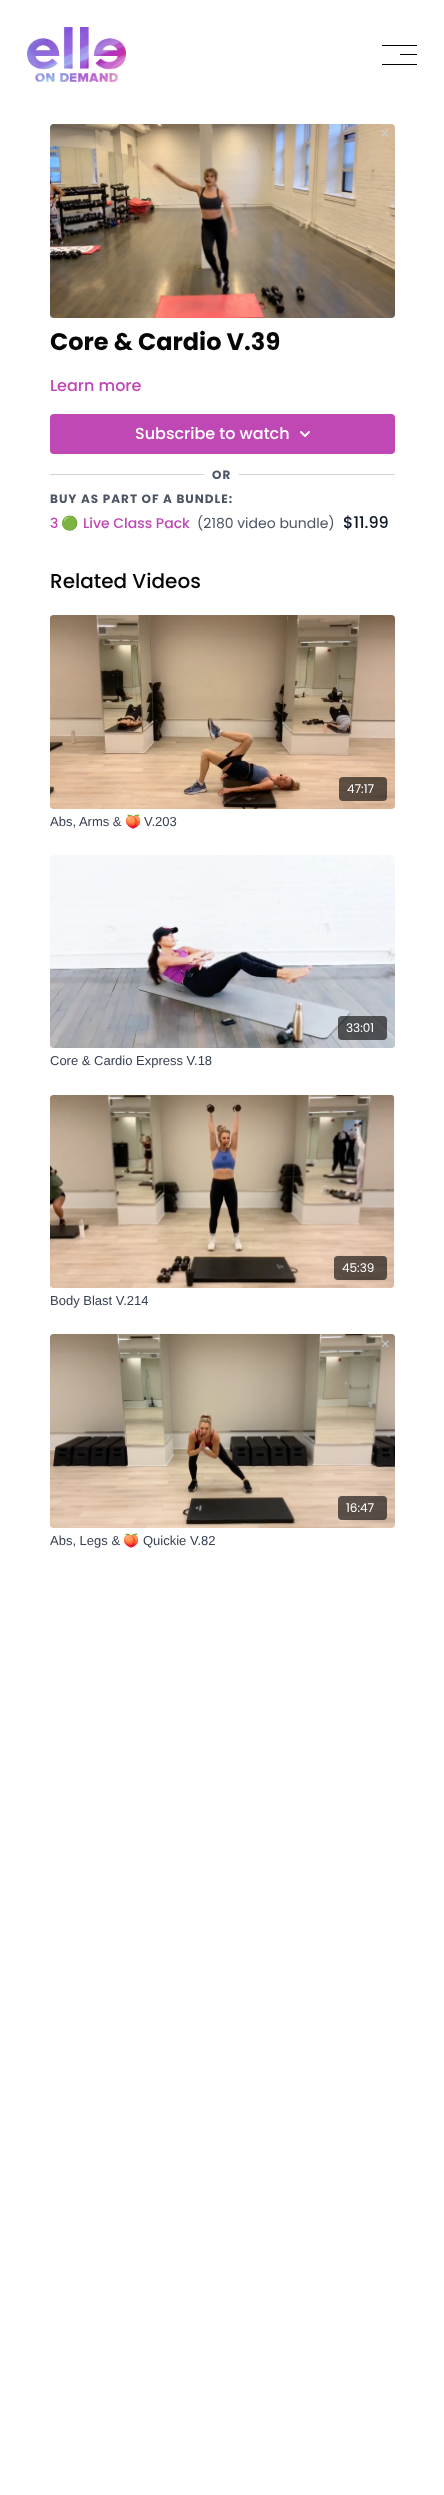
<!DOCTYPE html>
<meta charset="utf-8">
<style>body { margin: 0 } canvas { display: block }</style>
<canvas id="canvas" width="444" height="2495"></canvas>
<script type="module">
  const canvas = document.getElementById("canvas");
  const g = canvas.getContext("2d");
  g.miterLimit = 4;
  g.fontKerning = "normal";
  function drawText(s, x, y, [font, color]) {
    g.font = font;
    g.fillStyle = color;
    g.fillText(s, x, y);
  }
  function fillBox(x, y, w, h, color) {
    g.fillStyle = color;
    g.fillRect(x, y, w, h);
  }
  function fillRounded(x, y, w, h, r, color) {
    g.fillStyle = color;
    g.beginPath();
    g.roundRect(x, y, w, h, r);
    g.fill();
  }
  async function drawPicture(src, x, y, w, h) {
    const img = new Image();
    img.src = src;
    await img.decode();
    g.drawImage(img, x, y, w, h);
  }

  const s1 = ["bold 24px Poppins", "#060606"];
  const s2 = ["500 16px Poppins", "#BF48B4"];
  const s3 = ["500 16px Poppins", "#FFFFFF"];
  const s4 = ["bold 12px Poppins", "#4B5563"];
  const s5 = ["500 14px Poppins", "#BF48B4"];
  const s6 = ["14px Noto Color Emoji", "#BF48B4"];
  const s7 = ["14px Poppins", "#4B5563"];
  const s8 = ["500 16px Poppins", "#111827"];
  const s9 = ["500 20px Poppins", "#060606"];
  const s10 = ["12px Poppins", "#FFFFFF"];
  const s11 = ["13px Liberation Sans", "#374151"];
  const s12 = ["13px Noto Color Emoji", "#374151"];

  fillBox(0, 0, 444, 2495, "#FFFFFF");
  await drawPicture("pic1.png", 27, 27, 99, 55);
  fillBox(382, 45, 35, 1, "#000000");
  fillBox(400, 54, 17, 1, "#000000");
  fillBox(382, 64, 35, 1, "#000000");
  await drawPicture("pic2.png", 50, 124, 345, 194);
  drawText("Core & Cardio V.39", 50, 350, s1);
  drawText("Learn more", 50, 391, s2);
  fillRounded(50, 414, 345, 40, 4, "#BF48B4");
  drawText("Subscribe to watch", 135, 439, s3);
  await drawPicture("pic3.png", 300, 431, 10, 6);
  fillBox(50, 474, 345, 1, "#D1D5DB");
  fillBox(204, 474, 35, 1, "#FFFFFF");
  g.letterSpacing = "1px";
  drawText("OR", 212, 479, s4);
  drawText("BUY AS PART OF A BUNDLE:", 50, 503, s4);
  g.letterSpacing = "0px";
  drawText("3", 50, 528, s5);
  drawText("🟢", 61, 528, s6);
  drawText("Live Class Pack", 83, 528, s5);
  drawText("(2180 video bundle)", 197, 528, s7);
  drawText("$11.99", 343, 528, s8);
  drawText("Related Videos", 50, 588, s9);
  await drawPicture("pic4.png", 50, 615, 345, 194);
  fillRounded(339, 777, 48, 24, 4, "rgba(0, 0, 0, 0.6)");
  drawText("47:17", 347, 793, s10);
  drawText("Abs, Arms &", 50, 826, s11);
  drawText("🍑", 125, 826, s12);
  drawText("V.203", 144, 826, s11);
  await drawPicture("pic5.png", 50, 855, 345, 193);
  fillRounded(338, 1016, 49, 24, 4, "rgba(0, 0, 0, 0.6)");
  drawText("33:01", 346, 1032, s10);
  drawText("Core & Cardio Express V.18", 50, 1065, s11);
  await drawPicture("pic6.png", 50, 1095, 345, 193);
  fillRounded(334, 1256, 53, 24, 4, "rgba(0, 0, 0, 0.6)");
  drawText("45:39", 342, 1272, s10);
  drawText("Body Blast V.214", 50, 1305, s11);
  await drawPicture("pic7.png", 50, 1334, 345, 194);
  fillRounded(338, 1496, 49, 24, 4, "rgba(0, 0, 0, 0.6)");
  drawText("16:47", 346, 1512, s10);
  drawText("Abs, Legs &", 50, 1545, s11);
  drawText("🍑", 123, 1545, s12);
  drawText("Quickie V.82", 143, 1545, s11);
</script>
